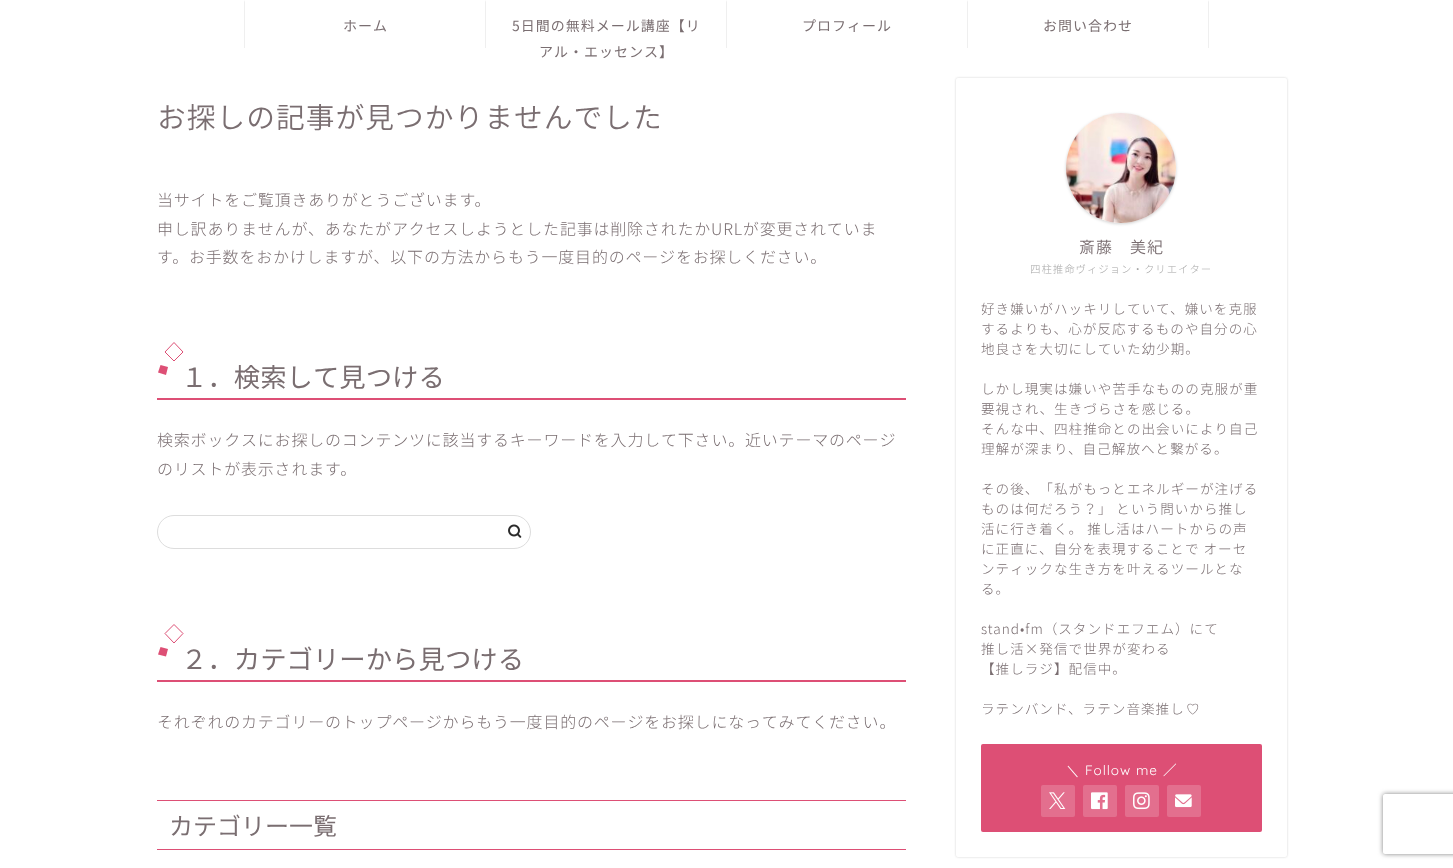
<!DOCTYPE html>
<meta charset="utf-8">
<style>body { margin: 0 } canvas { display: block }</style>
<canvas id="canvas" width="1453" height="868"></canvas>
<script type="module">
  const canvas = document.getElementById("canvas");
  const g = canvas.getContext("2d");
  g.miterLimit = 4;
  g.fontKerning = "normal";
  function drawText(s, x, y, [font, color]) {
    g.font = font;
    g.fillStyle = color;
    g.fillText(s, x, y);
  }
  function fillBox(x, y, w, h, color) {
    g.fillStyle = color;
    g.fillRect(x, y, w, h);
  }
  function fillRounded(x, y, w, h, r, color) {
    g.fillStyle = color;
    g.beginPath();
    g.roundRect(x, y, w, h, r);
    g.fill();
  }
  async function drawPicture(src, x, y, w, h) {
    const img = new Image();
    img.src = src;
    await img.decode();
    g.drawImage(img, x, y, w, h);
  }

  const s1 = ["14px Noto Sans JP", "#7A6E71"];
  const s2 = ["300 28.75px Noto Sans JP", "#7A6E71"];
  const s3 = ["300 16px 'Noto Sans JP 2'", "#7A6E71"];
  const s4 = ["26.4px Noto Sans JP", "#7A6E71"];
  const s5 = ["24px Noto Sans JP", "#7A6E71"];
  const s6 = ["300 16px Noto Sans JP", "#7A6E71"];
  const s7 = ["300 10.4px 'Noto Sans JP 2'", "#A6A6A6"];
  const s8 = ["300 13.6px 'Noto Sans JP 2'", "#7A6E71"];
  const s9 = ["500 13.6px WenQuanYi Zen Hei", "#7A6E71"];
  const s10 = ["500 13.6px WenQuanYi Zen Hei", "#FFFFFF"];
  const s11 = ["300 13.6px Quicksand", "#FFFFFF"];
  const s12 = ["13.6px Noto Sans JP", "#FFFFFF"];

  fillBox(0, 0, 1453, 868, "#FFFFFF");
  g.fillStyle = "#EFEFEF";
  g.beginPath();
  g.moveTo(244, 48);
  g.lineTo(244, 0);
  g.lineTo(245, 2);
  g.lineTo(245, 48);
  g.closePath();
  g.fill();
  g.letterSpacing = "1px";
  drawText("ホーム", 343, 31, s1);
  g.fillStyle = "#EFEFEF";
  g.beginPath();
  g.moveTo(485, 48);
  g.lineTo(485, 0);
  g.lineTo(486, 2);
  g.lineTo(486, 48);
  g.closePath();
  g.fill();
  drawText("5日間の無料メール講座【リ", 512, 31, s1);
  drawText("アル・エッセンス】", 539, 57, s1);
  g.fillStyle = "#EFEFEF";
  g.beginPath();
  g.moveTo(726, 48);
  g.lineTo(726, 0);
  g.lineTo(727, 2);
  g.lineTo(727, 48);
  g.closePath();
  g.fill();
  drawText("プロフィール", 802, 31, s1);
  g.fillStyle = "#EFEFEF";
  g.beginPath();
  g.moveTo(1209, 0);
  g.lineTo(1209, 48);
  g.lineTo(1208, 48);
  g.lineTo(1208, 2);
  g.closePath();
  g.fill();
  g.beginPath();
  g.moveTo(967, 48);
  g.lineTo(967, 0);
  g.lineTo(968, 2);
  g.lineTo(968, 48);
  g.closePath();
  g.fill();
  drawText("お問い合わせ", 1043, 31, s1);
  drawText("お探しの記事が見つかりませんでした", 157, 128, s2);
  g.letterSpacing = "0.8px";
  drawText("当サイトをご覧頂きありがとうございます。", 157, 206, s3);
  drawText("申し訳ありませんが、あなたがアクセスしようとした記事は削除されたかURLが変更されていま", 157, 235, s3);
  drawText("す。お手数をおかけしますが、以下の方法からもう一度目的のページをお探しください。", 157, 263, s3);
  fillBox(157, 398, 749, 2, "#DD4F75");
  g.beginPath();
  g.moveTo(174, 342.5);
  g.lineTo(183, 352);
  g.lineTo(174, 361);
  g.lineTo(165, 352);
  g.closePath();
  g.strokeStyle = "#DD4F75";
  g.stroke();
  g.beginPath();
  g.moveTo(160.5, 365);
  g.lineTo(168, 367);
  g.lineTo(166, 375);
  g.lineTo(158, 372.5);
  g.closePath();
  g.fill();
  g.letterSpacing = "0px";
  drawText("１．検索して見つける", 181, 387, s4);
  g.letterSpacing = "0.8px";
  drawText("検索ボックスにお探しのコンテンツに該当するキーワードを入力して下さい。近いテーマのページ", 157, 446, s3);
  drawText("のリストが表示されます。", 157, 475, s3);
  g.beginPath();
  g.roundRect(157.5, 515.5, 373, 33, 16.5);
  g.strokeStyle = "#DDDDDD";
  g.stroke();
  await drawPicture("pic1.png", 508, 524, 14, 14);
  fillBox(157, 680, 749, 2, "#DD4F75");
  g.beginPath();
  g.moveTo(174, 624.5);
  g.lineTo(183, 633.5);
  g.lineTo(174, 643);
  g.lineTo(165, 633.5);
  g.closePath();
  g.strokeStyle = "#DD4F75";
  g.stroke();
  g.beginPath();
  g.moveTo(160.5, 647);
  g.lineTo(168, 649);
  g.lineTo(166, 656.5);
  g.lineTo(158, 654.5);
  g.closePath();
  g.fill();
  g.letterSpacing = "0px";
  drawText("２．カテゴリーから見つける", 181, 669, s4);
  g.letterSpacing = "0.8px";
  drawText("それぞれのカテゴリーのトップページからもう一度目的のページをお探しになってみてください。", 157, 728, s3);
  fillBox(157, 800, 749, 1, "#DD4F75");
  fillBox(157, 849, 749, 1, "#DD4F75");
  g.letterSpacing = "0px";
  drawText("カテゴリー一覧", 169, 835, s5);
  g.fillStyle = "rgba(0, 0, 0, 0.18)";
  g.filter = "blur(1px)";
  g.beginPath();
  g.roundRect(956, 78, 331, 779, 2);
  g.fill();
  g.filter = "none";
  fillRounded(956, 78, 331, 779, 2, "#FFFFFF");
  g.fillStyle = "rgba(0, 0, 0, 0.18)";
  g.filter = "blur(1.5px)";
  g.beginPath();
  g.roundRect(1066, 114, 110, 110, 55);
  g.fill();
  g.filter = "none";
  g.fillStyle = "#FFFFFF";
  g.beginPath();
  g.arc(1121, 168, 55, 0, Math.PI * 2);
  g.fill();
  await drawPicture("pic2.png", 1066, 113, 110, 110);
  g.letterSpacing = "1px";
  drawText("斎藤　美紀", 1079, 253, s6);
  drawText("四柱推命ヴィジョン・クリエイター", 1030, 273, s7);
  drawText("好き嫌いがハッキリしていて、嫌いを克服", 981, 314, s8);
  drawText("するよりも、心が反応するものや自分の心", 981, 334, s8);
  drawText("地良さを大切にしていた幼少期。", 981, 354, s8);
  drawText("しかし現実は嫌いや苦手なものの克服が重", 981, 394, s8);
  drawText("要視され、生きづらさを感じる。", 981, 414, s8);
  drawText("そんな中、四柱推命との出会いにより自己", 981, 434, s8);
  drawText("理解が深まり、自己解放へと繋がる。", 981, 454, s8);
  drawText("その後、「私がもっとエネルギーが注げる", 981, 494, s8);
  drawText("ものは何だろう？」 という問いから推し", 981, 514, s8);
  drawText("活に行き着く。 推し活はハートからの声", 981, 534, s8);
  drawText("に正直に、自分を表現することで オーセ", 981, 554, s8);
  drawText("ンティックな生き方を叶えるツールとな", 981, 574, s8);
  drawText("る。", 981, 594, s8);
  drawText("stand•fm（スタンドエフエム）にて", 981, 634, s8);
  drawText("推し活×発信で世界が変わる", 981, 654, s8);
  drawText("【推しラジ】配信中。", 981, 674, s8);
  drawText("ラテンバンド、ラテン音楽推し", 981, 714, s8);
  drawText("♡", 1186, 714, s9);
  fillRounded(981, 744, 281, 88, 2, "#DD4F75");
  drawText("＼", 1066, 775, s10);
  drawText("Follow me", 1085, 775, s11);
  drawText("／", 1163, 775, s12);
  fillRounded(1041, 785, 34, 32, 2, "#E36F8E");
  await drawPicture("pic3.png", 1049, 792, 17, 17);
  fillRounded(1083, 785, 34, 32, 2, "#E36F8E");
  await drawPicture("pic4.png", 1091, 792, 17, 18);
  fillRounded(1125, 785, 34, 32, 2, "#E36F8E");
  await drawPicture("pic5.png", 1133, 792, 17, 18);
  fillRounded(1167, 785, 34, 32, 2, "#E36F8E");
  await drawPicture("pic6.png", 1175, 794, 17, 14);
  g.save();
  g.beginPath();
  g.moveTo(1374, 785);
  g.lineTo(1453, 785);
  g.lineTo(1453, 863);
  g.lineTo(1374, 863);
  g.closePath();
  g.moveTo(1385, 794);
  g.lineTo(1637, 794);
  g.bezierCurveTo(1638, 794, 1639, 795, 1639, 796);
  g.lineTo(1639, 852);
  g.bezierCurveTo(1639, 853, 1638, 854, 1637, 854);
  g.lineTo(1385, 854);
  g.bezierCurveTo(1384, 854, 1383, 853, 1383, 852);
  g.lineTo(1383, 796);
  g.bezierCurveTo(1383, 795, 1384, 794, 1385, 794);
  g.closePath();
  g.clip("evenodd");
  g.fillStyle = "#808080";
  g.filter = "blur(2.5px)";
  g.beginPath();
  g.roundRect(1383, 794, 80, 60, 2);
  g.fill();
  g.filter = "none";
  g.restore();
</script>
